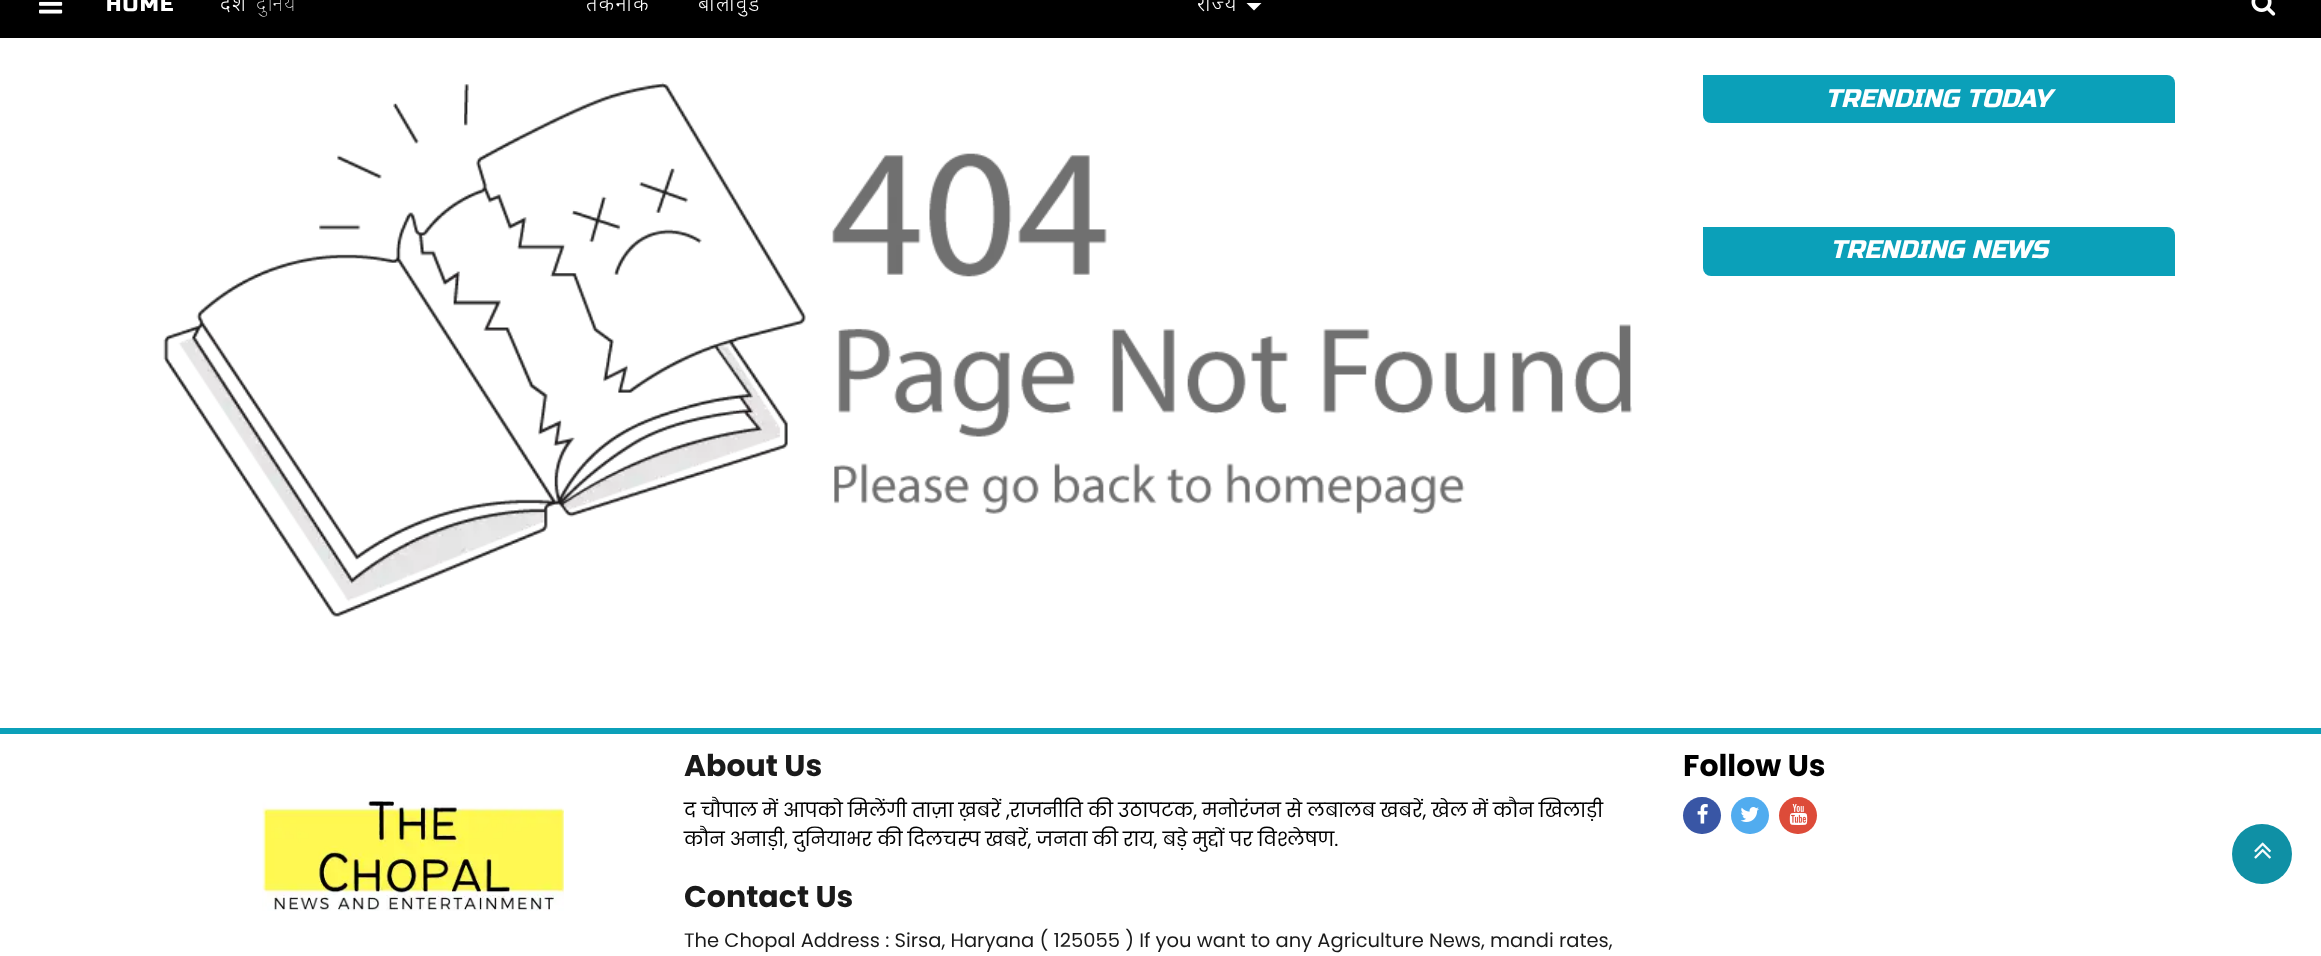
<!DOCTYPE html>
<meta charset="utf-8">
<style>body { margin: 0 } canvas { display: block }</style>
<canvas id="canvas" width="2321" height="956"></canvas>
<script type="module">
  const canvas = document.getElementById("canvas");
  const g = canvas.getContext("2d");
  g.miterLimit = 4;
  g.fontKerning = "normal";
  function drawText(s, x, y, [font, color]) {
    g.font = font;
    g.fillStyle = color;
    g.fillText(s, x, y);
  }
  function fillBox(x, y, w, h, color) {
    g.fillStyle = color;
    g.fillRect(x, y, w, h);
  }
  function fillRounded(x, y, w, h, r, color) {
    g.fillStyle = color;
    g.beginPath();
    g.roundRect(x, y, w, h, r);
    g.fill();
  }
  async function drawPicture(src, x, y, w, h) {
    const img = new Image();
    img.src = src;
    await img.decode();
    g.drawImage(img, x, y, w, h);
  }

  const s1 = ["21px Russo One", "#FFFFFF"];
  const s2 = ["300 21px Noto Sans", "#FFFFFF"];
  const s3 = ["100 21px Noto Sans", "#FFFFFF"];
  const s4 = ["italic 25.5px Russo One", "#FFFFFF"];
  const s5 = ["bold 30px Poppins", "#1A1A1A"];
  const s6 = ["19.5px Poppins", "#000000"];
  const s7 = ["19.5px Poppins", "#1A1A1A"];
  const s8 = ["bold 30px Poppins", "#000000"];

  fillBox(0, 0, 2321, 956, "#FFFFFF");
  fillBox(0, 0, 2321, 38, "#000000");
  await drawPicture("pic1.png", 39, 1, 24, 13);
  g.letterSpacing = "1.5px";
  drawText("HOME", 106, 11, s1);
  drawText("देश", 220, 11, s2);
  drawText("दुनिय", 256, 11, s3);
  drawText("तकनीक", 586, 11, s2);
  drawText("बॉलीवुड", 698, 11, s2);
  drawText("राज्य", 1197, 11, s2);
  g.beginPath();
  g.moveTo(1246.5, 3);
  g.lineTo(1261.5, 3);
  g.lineTo(1254, 10.5);
  g.closePath();
  g.fill();
  await drawPicture("pic2.png", 2251, 0, 25, 16);
  await drawPicture("pic3.png", 163, 82, 1469, 535);
  g.fillStyle = "#0BA0B9";
  g.beginPath();
  g.roundRect(1703, 75, 472, 48, [0, 8, 0, 8]);
  g.fill();
  g.letterSpacing = "-0.1px";
  drawText("TRENDING TODAY", 1825, 107, s4);
  g.fillStyle = "#0BA0B9";
  g.beginPath();
  g.roundRect(1703, 227, 472, 49, [0, 8, 0, 8]);
  g.fill();
  drawText("TRENDING NEWS", 1830, 258, s4);
  fillBox(0, 728, 2321, 6, "#0BA0B9");
  g.letterSpacing = "0px";
  drawText("About Us", 684, 776, s5);
  drawText("द चौपाल में आपको मिलेंगी ताज़ा ख़बरें ,राजनीति की उठापटक, मनोरंजन से लबालब खबरें, खेल में कौन खिलाड़ी", 684, 817, s6);
  drawText("कौन अनाड़ी, दुनियाभर की दिलचस्प खबरें, जनता की राय, बड़े मुद्दों पर विश्लेषण.", 684, 846, s6);
  drawText("Contact Us", 684, 907, s5);
  drawText("The Chopal Address : Sirsa, Haryana ( 125055 ) If you want to any Agriculture News, mandi rates,", 684, 947, s7);
  drawText("Follow Us", 1683, 776, s8);
  fillRounded(1683, 797, 38, 37, 18.5, "#3956A5");
  await drawPicture("pic4.png", 1697, 804, 11, 20);
  fillRounded(1731, 797, 38, 37, 18.5, "#51ACEF");
  await drawPicture("pic5.png", 1740, 807, 19, 15);
  fillRounded(1779, 797, 38, 37, 18.5, "#DD4B39");
  await drawPicture("pic6.png", 1789, 804, 19, 21);
  await drawPicture("pic7.png", 262, 801, 302, 110);
  g.fillStyle = "#0F90A5";
  g.beginPath();
  g.arc(2262, 854, 30, 0, Math.PI * 2);
  g.fill();
  await drawPicture("pic8.png", 2254, 842, 17, 17);
</script>
